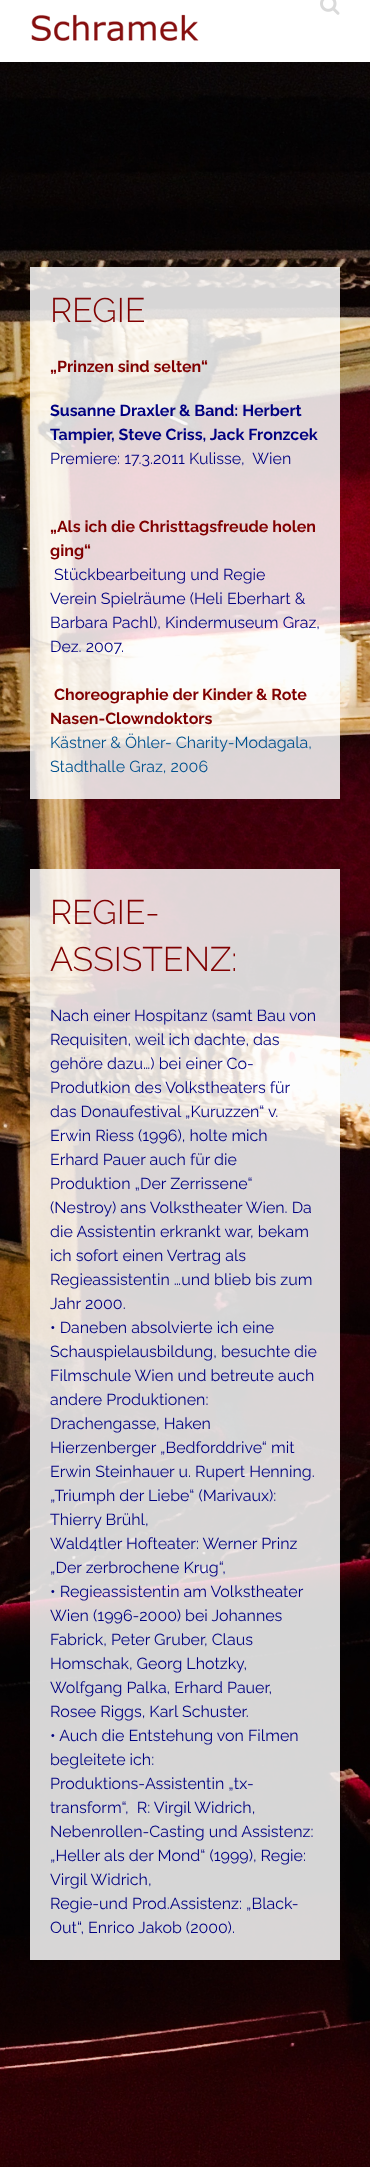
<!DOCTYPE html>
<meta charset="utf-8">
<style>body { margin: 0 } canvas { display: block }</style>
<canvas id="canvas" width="370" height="2167"></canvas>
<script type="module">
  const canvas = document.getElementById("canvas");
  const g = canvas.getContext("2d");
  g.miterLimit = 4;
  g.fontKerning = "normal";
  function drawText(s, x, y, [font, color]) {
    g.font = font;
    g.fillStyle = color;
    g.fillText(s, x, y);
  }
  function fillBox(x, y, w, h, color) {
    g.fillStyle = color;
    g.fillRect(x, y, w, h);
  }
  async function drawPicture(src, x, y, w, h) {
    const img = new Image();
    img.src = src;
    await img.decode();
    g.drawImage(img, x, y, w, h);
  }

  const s1 = ["100 34px Raleway", "#800000"];
  const s2 = ["100 16px 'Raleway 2'", "#800000"];
  const s3 = ["100 16px 'Raleway 2'", "#000080"];
  const s4 = ["100 16px 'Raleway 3'", "#000080"];
  const s5 = ["100 16px 'Raleway 3'", "#01518E"];

  fillBox(0, 0, 370, 2167, "#FFFFFF");
  await drawPicture("pic1.png", 320, 0, 20, 15);
  await drawPicture("pic2.png", 31, 14, 168, 27);
  await drawPicture("pic3.png", 0, 62, 370, 2105);
  fillBox(30, 267, 310, 532, "rgba(255, 255, 255, 0.84)");
  drawText("REGIE", 50, 322, s1);
  drawText("„Prinzen sind selten“", 50, 372, s2);
  drawText("Susanne Draxler & Band: Herbert", 50, 416, s3);
  drawText("Tampier, Steve Criss, Jack Fronzcek", 50, 440, s3);
  drawText("Premiere: 17.3.2011 Kulisse,  Wien", 50, 464, s4);
  drawText("„Als ich die Christtagsfreude holen", 50, 532, s2);
  drawText("ging“", 50, 556, s2);
  drawText("Stückbearbeitung und Regie", 54, 580, s4);
  drawText("Verein Spielräume (Heli Eberhart &", 50, 604, s4);
  drawText("Barbara Pachl), Kindermuseum Graz,", 50, 628, s4);
  drawText("Dez. 2007.", 50, 652, s4);
  drawText("Choreographie der Kinder & Rote", 54, 700, s2);
  drawText("Nasen-Clowndoktors", 50, 724, s2);
  drawText("Kästner & Öhler- Charity-Modagala,", 50, 748, s5);
  drawText("Stadthalle Graz, 2006", 50, 772, s5);
  fillBox(30, 869, 310, 1091, "rgba(255, 255, 255, 0.84)");
  drawText("REGIE-", 50, 924, s1);
  drawText("ASSISTENZ:", 50, 971, s1);
  drawText("Nach einer Hospitanz (samt Bau von", 50, 1021, s4);
  drawText("Requisiten, weil ich dachte, das", 50, 1045, s4);
  drawText("gehöre dazu…) bei einer Co-", 50, 1069, s4);
  drawText("Produtkion des Volkstheaters für", 50, 1093, s4);
  drawText("das Donaufestival „Kuruzzen“ v.", 50, 1117, s4);
  drawText("Erwin Riess (1996), holte mich", 50, 1141, s4);
  drawText("Erhard Pauer auch für die", 50, 1165, s4);
  drawText("Produktion „Der Zerrissene“", 50, 1189, s4);
  drawText("(Nestroy) ans Volkstheater Wien. Da", 50, 1213, s4);
  drawText("die Assistentin erkrankt war, bekam", 50, 1237, s4);
  drawText("ich sofort einen Vertrag als", 50, 1261, s4);
  drawText("Regieassistentin …und blieb bis zum", 50, 1285, s4);
  drawText("Jahr 2000.", 50, 1309, s4);
  drawText("• Daneben absolvierte ich eine", 50, 1333, s4);
  drawText("Schauspielausbildung, besuchte die", 50, 1357, s4);
  drawText("Filmschule Wien und betreute auch", 50, 1381, s4);
  drawText("andere Produktionen:", 50, 1405, s4);
  drawText("Drachengasse, Haken", 50, 1429, s4);
  drawText("Hierzenberger „Bedforddrive“ mit", 50, 1453, s4);
  drawText("Erwin Steinhauer u. Rupert Henning.", 50, 1477, s4);
  drawText("„Triumph der Liebe“ (Marivaux):", 50, 1501, s4);
  drawText("Thierry Brühl,", 50, 1525, s4);
  drawText("Wald4tler Hofteater: Werner Prinz", 50, 1549, s4);
  drawText("„Der zerbrochene Krug“,", 50, 1573, s4);
  drawText("• Regieassistentin am Volkstheater", 50, 1597, s4);
  drawText("Wien (1996-2000) bei Johannes", 50, 1621, s4);
  drawText("Fabrick, Peter Gruber, Claus", 50, 1645, s4);
  drawText("Homschak, Georg Lhotzky,", 50, 1669, s4);
  drawText("Wolfgang Palka, Erhard Pauer,", 50, 1693, s4);
  drawText("Rosee Riggs, Karl Schuster.", 50, 1717, s4);
  drawText("• Auch die Entstehung von Filmen", 50, 1741, s4);
  drawText("begleitete ich:", 50, 1765, s4);
  drawText("Produktions-Assistentin „tx-", 50, 1789, s4);
  drawText("transform“,  R: Virgil Widrich,", 50, 1813, s4);
  drawText("Nebenrollen-Casting und Assistenz:", 50, 1837, s4);
  drawText("„Heller als der Mond“ (1999), Regie:", 50, 1861, s4);
  drawText("Virgil Widrich,", 50, 1885, s4);
  drawText("Regie-und Prod.Assistenz: „Black-", 50, 1909, s4);
  drawText("Out“, Enrico Jakob (2000).", 50, 1933, s4);
</script>
